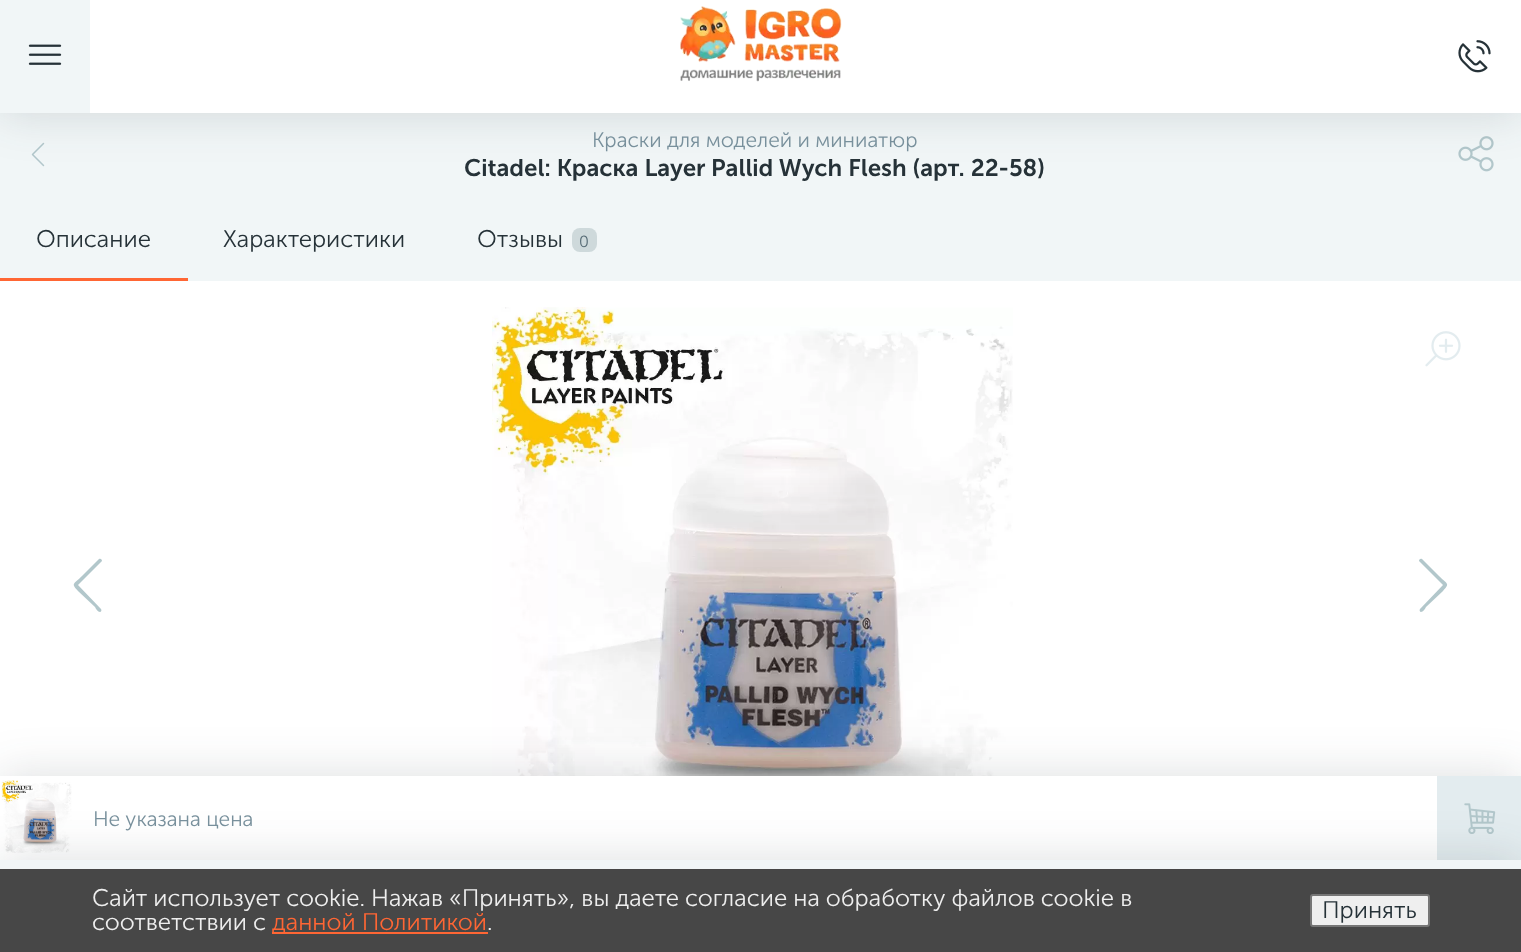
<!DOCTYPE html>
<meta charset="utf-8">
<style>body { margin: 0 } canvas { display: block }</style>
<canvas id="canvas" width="1521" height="952"></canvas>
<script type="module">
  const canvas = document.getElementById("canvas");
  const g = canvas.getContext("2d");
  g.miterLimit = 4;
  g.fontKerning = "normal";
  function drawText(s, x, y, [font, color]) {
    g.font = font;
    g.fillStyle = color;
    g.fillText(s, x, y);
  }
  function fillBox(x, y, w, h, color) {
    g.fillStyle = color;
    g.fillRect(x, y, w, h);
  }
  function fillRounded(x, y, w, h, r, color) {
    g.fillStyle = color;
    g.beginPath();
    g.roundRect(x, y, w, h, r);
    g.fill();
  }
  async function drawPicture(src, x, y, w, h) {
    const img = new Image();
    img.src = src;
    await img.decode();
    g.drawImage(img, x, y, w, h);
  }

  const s1 = ["300 21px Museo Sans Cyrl", "#78909C"];
  const s2 = ["600 24px Museo Sans Cyrl", "#263238"];
  const s3 = ["300 24px Museo Sans Cyrl", "#263238"];
  const s4 = ["300 16px Museo Sans Cyrl", "#566B75"];
  const s5 = ["300 24px Museo Sans Cyrl", "#EEEEEE"];
  const s6 = ["300 24px Museo Sans Cyrl", "#FF6634"];

  fillBox(0, 0, 1521, 952, "#FFFFFF");
  fillBox(0, 113, 1521, 168, "#F1F6F7");
  await drawPicture("pic4.png", 31, 142, 14, 25);
  await drawPicture("pic5.png", 1458, 136, 36, 36);
  g.fillStyle = "rgba(38, 50, 56, 0.16)";
  g.filter = "blur(24px)";
  g.beginPath();
  g.rect(0, 0, 1521, 113);
  g.fill();
  g.filter = "none";
  fillBox(90, 0, 1431, 113, "#FFFFFF");
  fillBox(0, 0, 90, 113, "#F1F6F7");
  await drawPicture("pic1.png", 28, 44, 34, 21);
  await drawPicture("pic2.png", 680, 6, 162, 76);
  await drawPicture("pic3.png", 1458, 40, 33, 33);
  await drawPicture("pic6.png", 492, 307, 521, 469);
  g.fillStyle = "rgba(38, 50, 56, 0.16)";
  g.filter = "blur(24px)";
  g.beginPath();
  g.rect(0, 776, 1521, 84);
  g.fill();
  g.filter = "none";
  fillBox(0, 776, 1437, 84, "#FFFFFF");
  await drawPicture("pic9.png", 1, 780, 71, 73);
  fillBox(1437, 776, 84, 84, "#E3ECEF");
  await drawPicture("pic10.png", 1464, 803, 32, 31);
  g.fillStyle = "rgba(38, 50, 56, 0.16)";
  g.filter = "blur(24px)";
  g.beginPath();
  g.rect(0, 860, 1521, 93);
  g.fill();
  g.filter = "none";
  fillBox(0, 860, 1521, 9, "#F1F6F7");
  drawText("Краски для моделей и миниатюр", 592, 147, s1);
  drawText("Citadel: Краска Layer Pallid Wych Flesh (арт. 22-58)", 464, 176, s2);
  drawText("Описание", 36, 247, s3);
  fillBox(0, 278, 188, 3, "#FF6634");
  drawText("Характеристики", 223, 247, s3);
  drawText("Отзывы", 477, 247, s3);
  fillRounded(572, 228, 25, 24, 8, "#CED9DB");
  drawText("0", 579, 247, s4);
  await drawPicture("pic7.png", 505, 307, 80, 1);
  await drawPicture("pic8.png", 1425, 331, 36, 36);
  g.fillStyle = "#B2C7CB";
  g.beginPath();
  g.moveTo(100, 612);
  g.bezierCurveTo(98, 612, 96, 609, 95, 607);
  g.lineTo(78, 591);
  g.bezierCurveTo(71, 583, 73, 585, 82, 576);
  g.lineTo(99, 559);
  g.bezierCurveTo(101, 558, 102, 560, 102, 561);
  g.lineTo(78, 585);
  g.lineTo(101, 609);
  g.bezierCurveTo(102, 610, 101, 612, 100, 612);
  g.closePath();
  g.fill();
  g.beginPath();
  g.moveTo(1421, 612);
  g.bezierCurveTo(1420, 612, 1419, 610, 1420, 609);
  g.lineTo(1443, 585);
  g.lineTo(1419, 561);
  g.bezierCurveTo(1419, 560, 1420, 558, 1422, 559);
  g.lineTo(1439, 576);
  g.bezierCurveTo(1448, 585, 1450, 583, 1443, 591);
  g.lineTo(1426, 607);
  g.bezierCurveTo(1425, 609, 1423, 612, 1421, 612);
  g.closePath();
  g.fill();
  drawText("Не указана цена", 93, 826, s1);
  fillBox(0, 869, 1521, 83, "#474747");
  drawText("Сайт использует cookie. Нажав «Принять», вы даете согласие на обработку файлов cookie в", 92, 906, s5);
  drawText("соответствии с", 92, 930, s5);
  fillBox(272, 932, 216, 2, "#FF6634");
  drawText("данной Политикой", 272, 930, s6);
  drawText(".", 487, 930, s5);
  g.fillStyle = "#EFEFEF";
  g.beginPath();
  g.roundRect(1311, 895, 118, 31, 2);
  g.fill();
  g.strokeStyle = "#767676";
  g.lineWidth = 2;
  g.stroke();
  drawText("Принять", 1322, 918, s3);
</script>
